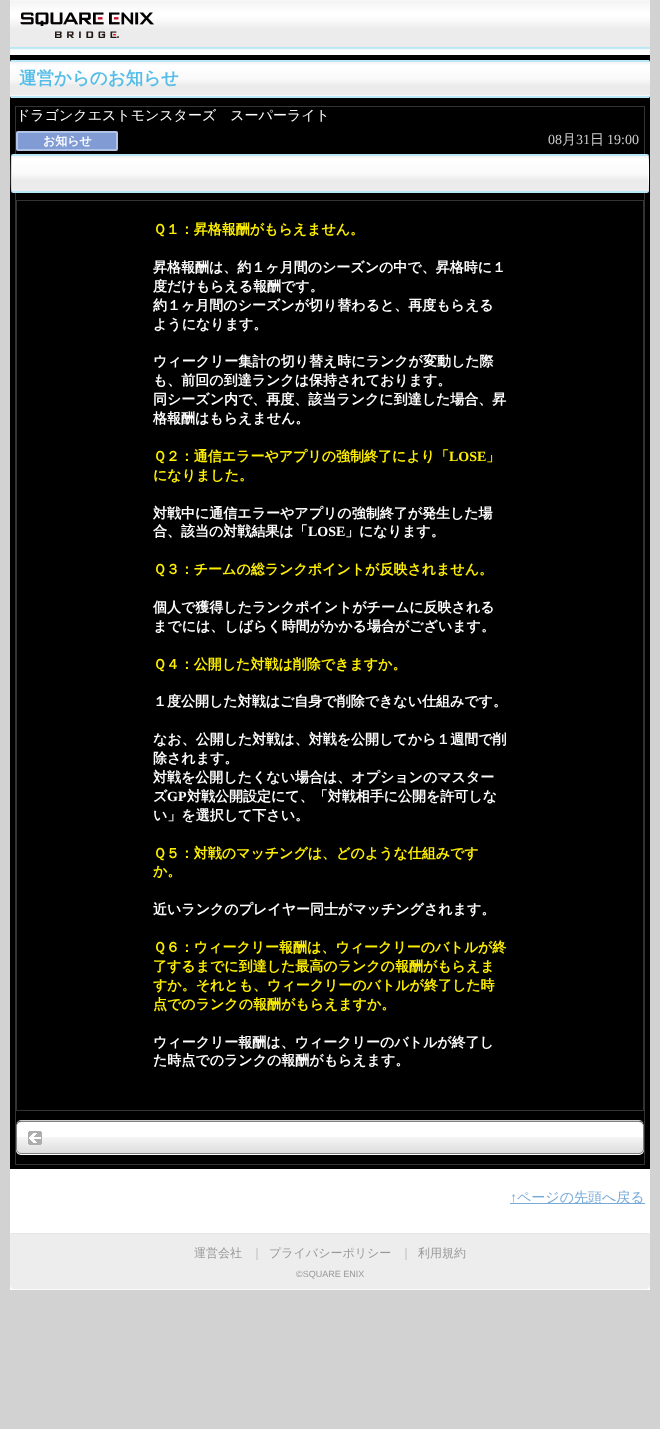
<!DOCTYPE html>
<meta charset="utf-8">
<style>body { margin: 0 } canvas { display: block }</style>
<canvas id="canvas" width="660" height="1429"></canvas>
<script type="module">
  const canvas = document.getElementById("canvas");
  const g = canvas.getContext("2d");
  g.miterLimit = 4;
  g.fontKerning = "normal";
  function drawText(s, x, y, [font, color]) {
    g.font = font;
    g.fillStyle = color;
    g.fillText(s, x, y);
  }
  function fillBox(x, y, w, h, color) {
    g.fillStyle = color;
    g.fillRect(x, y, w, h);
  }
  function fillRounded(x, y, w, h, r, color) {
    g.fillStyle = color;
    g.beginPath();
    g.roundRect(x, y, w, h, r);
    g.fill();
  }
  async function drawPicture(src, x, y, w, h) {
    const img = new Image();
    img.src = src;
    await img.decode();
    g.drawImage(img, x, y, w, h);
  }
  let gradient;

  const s1 = ["bold 17.5px WenQuanYi Zen Hei", "#55BDE8"];
  const s2 = ["500 14px WenQuanYi Zen Hei", "#FFFFFF"];
  const s3 = ["bold 12px WenQuanYi Zen Hei", "#FFFFFF"];
  const s4 = ["14px Liberation Serif", "#CCCCCC"];
  const s5 = ["500 14px WenQuanYi Zen Hei", "#CCCCCC"];
  const s6 = ["bold 14px WenQuanYi Zen Hei", "#FFF000"];
  const s7 = ["bold 14px WenQuanYi Zen Hei", "#FFFFFF"];
  const s8 = ["bold 14px Liberation Serif", "#FFF000"];
  const s9 = ["bold 14px Liberation Serif", "#FFFFFF"];
  const s10 = ["14px Liberation Serif", "#77AAD9"];
  const s11 = ["500 14px WenQuanYi Zen Hei", "#77AAD9"];
  const s12 = ["500 12px WenQuanYi Zen Hei", "#999999"];
  const s13 = ["500 12px WenQuanYi Zen Hei", "#B3B3B3"];
  const s14 = ["9px Liberation Sans", "#999999"];

  fillBox(0, 0, 660, 1429, "#D2D2D2");
  fillBox(10, 50, 640, 1240, "#FFFFFF");
  await drawPicture("pic1.png", 10, 0, 640, 50);
  await drawPicture("pic2.png", 20, 12, 134, 26);
  fillBox(10, 55, 640, 1114, "#000000");
  gradient = g.createLinearGradient(330, 28, 330, 62);
  gradient.addColorStop(0, "#F2F3F4");
  gradient.addColorStop(0.1, "#FFFFFF");
  gradient.addColorStop(0.5, "#FAFAFA");
  gradient.addColorStop(0.7, "#EBEBEB");
  gradient.addColorStop(1, "#ECECEC");
  g.fillStyle = gradient;
  g.beginPath();
  g.roundRect(10, 60, 640, 2, [2, 2, 0, 0]);
  g.fill();
  gradient = g.createLinearGradient(330, 62, 330, 96);
  gradient.addColorStop(0, "#F2F3F4");
  gradient.addColorStop(0.1, "#FFFFFF");
  gradient.addColorStop(0.5, "#FAFAFA");
  gradient.addColorStop(0.7, "#EBEBEB");
  gradient.addColorStop(1, "#ECECEC");
  g.fillStyle = gradient;
  g.fillRect(10, 62, 640, 33);
  gradient = g.createLinearGradient(330, 96, 330, 130);
  gradient.addColorStop(0, "#F2F3F4");
  gradient.addColorStop(0.1, "#FFFFFF");
  gradient.addColorStop(0.5, "#FAFAFA");
  gradient.addColorStop(0.7, "#EBEBEB");
  gradient.addColorStop(1, "#ECECEC");
  g.fillStyle = gradient;
  g.beginPath();
  g.roundRect(10, 96, 640, 2, [0, 0, 2, 2]);
  g.fill();
  fillBox(10, 95, 640, 1, "#F6F6F6");
  fillBox(11, 60, 638, 2, "#B9E9F9");
  fillBox(11, 96, 638, 2, "#B9E9F9");
  drawText("運営からのお知らせ", 19, 84, s1);
  g.strokeStyle = "#333333";
  g.strokeRect(15.5, 106.5, 629, 1058);
  drawText("ドラゴンクエストモンスターズ　スーパーライト", 16, 120, s2);
  fillRounded(16, 131, 102, 20, 2, "#819BD5");
  g.beginPath();
  g.roundRect(17, 132, 100, 18, 1);
  g.strokeStyle = "rgba(255, 255, 255, 0.4)";
  g.lineWidth = 2;
  g.stroke();
  drawText("お知らせ", 43, 145, s3);
  drawText("08", 548, 144, s4);
  drawText("月", 562, 144, s5);
  drawText("31", 576, 144, s4);
  drawText("日", 590, 144, s5);
  drawText("19:00", 607, 144, s4);
  gradient = g.createLinearGradient(330, 156, 330, 191);
  gradient.addColorStop(0, "#F2F3F4");
  gradient.addColorStop(0.1, "#FFFFFF");
  gradient.addColorStop(0.5, "#FAFAFA");
  gradient.addColorStop(0.7, "#EBEBEB");
  gradient.addColorStop(1, "#ECECEC");
  g.fillStyle = gradient;
  g.beginPath();
  g.moveTo(13, 156);
  g.lineTo(648, 156);
  g.lineTo(648, 191);
  g.lineTo(12, 191);
  g.lineTo(12, 156);
  g.closePath();
  g.fill();
  g.fillStyle = "#B9E9F9";
  g.beginPath();
  g.moveTo(13, 154);
  g.lineTo(11, 155);
  g.lineTo(12, 156);
  g.lineTo(648, 156);
  g.lineTo(649, 155);
  g.lineTo(647, 154);
  g.closePath();
  g.fill();
  g.fillStyle = "#FFFFFF";
  g.beginPath();
  g.moveTo(649, 191);
  g.bezierCurveTo(649, 187, 649.5, 156, 648.5, 155);
  g.lineTo(648, 156);
  g.lineTo(648, 191);
  g.lineTo(648.5, 192);
  g.closePath();
  g.fill();
  g.fillStyle = "#B9E9F9";
  g.beginPath();
  g.moveTo(13, 193);
  g.lineTo(647, 193);
  g.lineTo(649, 192);
  g.lineTo(648, 191);
  g.lineTo(12, 191);
  g.lineTo(11, 192);
  g.closePath();
  g.fill();
  g.fillStyle = "#D6D6D6";
  g.beginPath();
  g.moveTo(11, 156);
  g.bezierCurveTo(11, 160, 10.5, 191, 11.5, 192);
  g.lineTo(12, 191);
  g.lineTo(12, 156);
  g.lineTo(11.5, 155);
  g.closePath();
  g.fill();
  g.strokeStyle = "#333333";
  g.lineWidth = 1;
  g.strokeRect(16.5, 200.5, 627, 910);
  drawText("Ｑ１：昇格報酬がもらえません。", 153, 234, s6);
  drawText("昇格報酬は、約１ヶ月間のシーズンの中で、昇格時に１", 153, 272, s7);
  drawText("度だけもらえる報酬です。", 153, 291, s7);
  drawText("約１ヶ月間のシーズンが切り替わると、再度もらえる", 153, 310, s7);
  drawText("ようになります。", 153, 329, s7);
  drawText("ウィークリー集計の切り替え時にランクが変動した際", 153, 366, s7);
  drawText("も、前回の到達ランクは保持されております。", 153, 385, s7);
  drawText("同シーズン内で、再度、該当ランクに到達した場合、昇", 153, 404, s7);
  drawText("格報酬はもらえません。", 153, 423, s7);
  drawText("Ｑ２：通信エラーやアプリの強制終了により「", 153, 461, s6);
  drawText("LOSE", 449, 461, s8);
  drawText("」", 486, 461, s6);
  drawText("になりました。", 153, 480, s6);
  drawText("対戦中に通信エラーやアプリの強制終了が発生した場", 153, 518, s7);
  drawText("合、該当の対戦結果は「", 153, 536, s7);
  drawText("LOSE", 308, 536, s9);
  drawText("」になります。", 345, 536, s7);
  drawText("Ｑ３：チームの総ランクポイントが反映されません。", 153, 574, s6);
  drawText("個人で獲得したランクポイントがチームに反映される", 153, 612, s7);
  drawText("までには、しばらく時間がかかる場合がございます。", 153, 631, s7);
  drawText("Ｑ４：公開した対戦は削除できますか。", 153, 669, s6);
  drawText("１度公開した対戦はご自身で削除できない仕組みです。", 153, 706, s7);
  drawText("なお、公開した対戦は、対戦を公開してから１週間で削", 153, 744, s7);
  drawText("除されます。", 153, 763, s7);
  drawText("対戦を公開したくない場合は、オプションのマスター", 153, 782, s7);
  drawText("ズ", 153, 801, s7);
  drawText("GP", 167, 801, s9);
  drawText("対戦公開設定にて、「対戦相手に公開を許可しな", 187, 801, s7);
  drawText("い」を選択して下さい。", 153, 820, s7);
  drawText("Ｑ５：対戦のマッチングは、どのような仕組みです", 153, 858, s6);
  drawText("か。", 153, 876, s6);
  drawText("近いランクのプレイヤー同士がマッチングされます。", 153, 914, s7);
  drawText("Ｑ６：ウィークリー報酬は、ウィークリーのバトルが終", 153, 952, s6);
  drawText("了するまでに到達した最高のランクの報酬がもらえま", 153, 971, s6);
  drawText("すか。それとも、ウィークリーのバトルが終了した時", 153, 990, s6);
  drawText("点でのランクの報酬がもらえますか。", 153, 1009, s6);
  drawText("ウィークリー報酬は、ウィークリーのバトルが終了し", 153, 1047, s7);
  drawText("た時点でのランクの報酬がもらえます。", 153, 1065, s7);
  g.fillStyle = "#CCCCCC";
  g.beginPath();
  g.moveTo(21, 1120);
  g.bezierCurveTo(18, 1120, 16, 1123, 16, 1126);
  g.bezierCurveTo(16, 1123, 18, 1121, 21, 1121);
  g.lineTo(639, 1121);
  g.bezierCurveTo(642, 1121, 644, 1123, 644, 1126);
  g.bezierCurveTo(644, 1123, 642, 1120, 639, 1120);
  g.closePath();
  g.fill();
  g.fillStyle = "#FFFFFF";
  g.filter = "blur(0.5px)";
  g.beginPath();
  g.roundRect(16, 1122, 628, 33, 5);
  g.fill();
  g.filter = "none";
  await drawPicture("pic3.png", 17, 1122, 626, 31);
  g.beginPath();
  g.roundRect(16.5, 1121.5, 627, 32, 4.5);
  g.strokeStyle = "#7F7F7F";
  g.stroke();
  drawText("↑", 510, 1202, s10);
  fillBox(510, 1203, 135, 1, "#77AAD9");
  drawText("ページの先頭へ戻る", 517, 1202, s11);
  g.fillStyle = "#EDEDED";
  g.beginPath();
  g.roundRect(10, 1233, 640, 57, [2, 2, 5, 5]);
  g.fill();
  g.fillStyle = "#E6E6E6";
  g.beginPath();
  g.moveTo(12, 1233);
  g.bezierCurveTo(11, 1233, 10, 1234, 10, 1235);
  g.bezierCurveTo(10, 1234, 11, 1234, 12, 1234);
  g.lineTo(648, 1234);
  g.bezierCurveTo(649, 1234, 650, 1234, 650, 1235);
  g.bezierCurveTo(650, 1234, 649, 1233, 648, 1233);
  g.closePath();
  g.fill();
  g.fillStyle = "#FAFAFA";
  g.beginPath();
  g.moveTo(645, 1290);
  g.bezierCurveTo(648, 1290, 650, 1288, 650, 1285);
  g.bezierCurveTo(650, 1287, 648, 1289, 645, 1289);
  g.lineTo(15, 1289);
  g.bezierCurveTo(12, 1289, 10, 1287, 10, 1285);
  g.bezierCurveTo(10, 1288, 12, 1290, 15, 1290);
  g.closePath();
  g.fill();
  drawText("運営会社", 194, 1257, s12);
  drawText("｜", 251, 1257, s13);
  drawText("プライバシーポリシー", 269, 1257, s12);
  drawText("｜", 400, 1257, s13);
  drawText("利用規約", 418, 1257, s12);
  drawText("©SQUARE ENIX", 296, 1277, s14);
</script>
